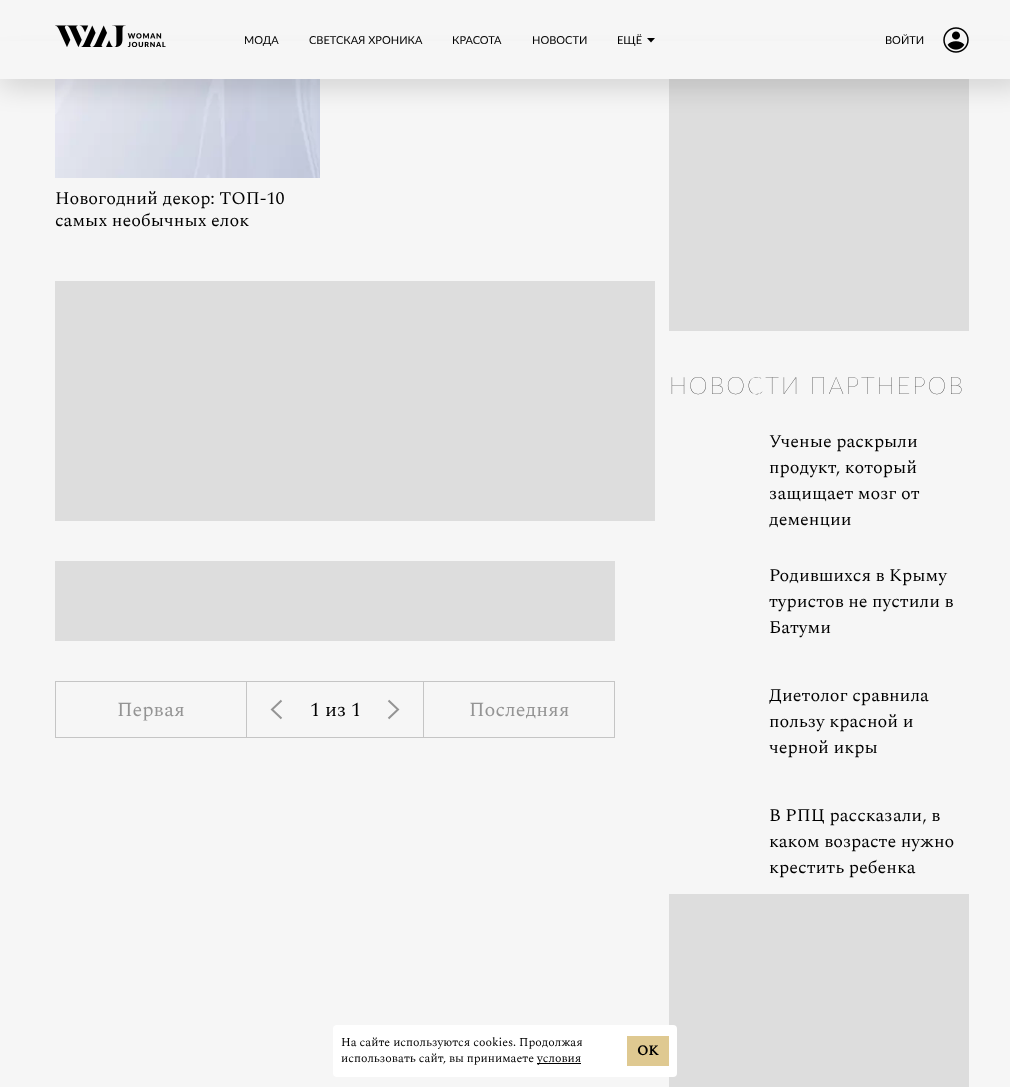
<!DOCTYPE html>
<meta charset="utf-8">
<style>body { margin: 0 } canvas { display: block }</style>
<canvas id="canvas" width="1010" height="1087"></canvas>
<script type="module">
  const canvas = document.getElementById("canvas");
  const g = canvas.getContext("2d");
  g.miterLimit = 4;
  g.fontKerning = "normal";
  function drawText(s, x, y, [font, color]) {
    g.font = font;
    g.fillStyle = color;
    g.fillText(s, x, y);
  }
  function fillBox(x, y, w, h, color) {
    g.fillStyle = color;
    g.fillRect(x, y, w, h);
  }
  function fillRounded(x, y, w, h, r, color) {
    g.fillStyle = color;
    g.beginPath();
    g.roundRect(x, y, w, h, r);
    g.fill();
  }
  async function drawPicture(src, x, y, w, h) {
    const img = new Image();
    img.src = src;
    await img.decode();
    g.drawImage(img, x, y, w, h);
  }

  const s1 = ["11px Lato", "#000000"];
  const s2 = ["18px Spectral", "#000000"];
  const s3 = ["20px Spectral", "#949494"];
  const s4 = ["20px Spectral", "#000000"];
  const s5 = ["200 24px Lato", "#000000"];
  const s6 = ["12px Spectral", "#000000"];
  const s7 = ["bold 14px Spectral", "#000000"];

  fillBox(0, 0, 1010, 1087, "#F6F6F6");
  await drawPicture("pic3.png", 55, 79, 265, 99);
  fillBox(669, 79, 300, 252, "#DDDDDD");
  g.fillStyle = "rgba(0, 0, 0, 0.4)";
  g.filter = "blur(15px)";
  g.beginPath();
  g.rect(0, 69, 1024, 10);
  g.fill();
  g.filter = "none";
  fillBox(0, 41, 1010, 38, "#F6F6F6");
  await drawPicture("pic1.png", 55, 25, 111, 22);
  drawText("МОДА", 244, 44, s1);
  drawText("СВЕТСКАЯ ХРОНИКА", 309, 44, s1);
  drawText("КРАСОТА", 452, 44, s1);
  drawText("НОВОСТИ", 532, 44, s1);
  drawText("ЕЩЁ", 617, 44, s1);
  g.beginPath();
  g.moveTo(647, 38);
  g.lineTo(655, 38);
  g.lineTo(651, 42.5);
  g.closePath();
  g.fill();
  drawText("ВОЙТИ", 885, 44, s1);
  await drawPicture("pic2.png", 943, 27, 26, 26);
  drawText("Новогодний декор: ТОП-10", 55, 204, s2);
  drawText("самых необычных елок", 55, 226, s2);
  fillBox(55, 281, 600, 240, "#DDDDDD");
  fillBox(55, 561, 560, 80, "#DDDDDD");
  g.strokeStyle = "#C5C5C5";
  g.strokeRect(55.5, 681.5, 559, 56);
  fillBox(246, 682, 1, 55, "#C5C5C5");
  drawText("Первая", 117, 716, s3);
  g.beginPath();
  g.moveTo(281.5, 718.5);
  g.lineTo(272, 709.5);
  g.lineTo(281.5, 700.5);
  g.strokeStyle = "#949494";
  g.lineWidth = 2;
  g.stroke();
  drawText("1 из 1", 310, 716, s4);
  g.beginPath();
  g.moveTo(388.5, 700.5);
  g.lineTo(398, 709.5);
  g.lineTo(388.5, 718.5);
  g.stroke();
  fillBox(423, 682, 1, 55, "#C5C5C5");
  drawText("Последняя", 469, 716, s3);
  g.letterSpacing = "1.9px";
  drawText("НОВОСТИ ПАРТНЕРОВ", 669, 394, s5);
  g.letterSpacing = "0px";
  drawText("Ученые раскрыли", 769, 447, s2);
  drawText("продукт, который", 769, 473, s2);
  drawText("защищает мозг от", 769, 499, s2);
  drawText("деменции", 769, 525, s2);
  drawText("Родившихся в Крыму", 769, 581, s2);
  drawText("туристов не пустили в", 769, 607, s2);
  drawText("Батуми", 769, 633, s2);
  drawText("Диетолог сравнила", 769, 701, s2);
  drawText("пользу красной и", 769, 727, s2);
  drawText("черной икры", 769, 753, s2);
  drawText("В РПЦ рассказали, в", 769, 821, s2);
  drawText("каком возрасте нужно", 769, 847, s2);
  drawText("крестить ребенка", 769, 873, s2);
  fillBox(669, 894, 300, 193, "#DDDDDD");
  fillRounded(333, 1025, 344, 52, 4, "#FFFFFF");
  drawText("На сайте используются cookies. Продолжая", 341, 1046, s6);
  drawText("использовать сайт, вы принимаете", 341, 1062, s6);
  fillBox(537, 1063, 44, 1, "#000000");
  drawText("условия", 537, 1062, s6);
  fillBox(627, 1036, 42, 30, "#DFC991");
  drawText("ОК", 637, 1055, s7);
</script>
